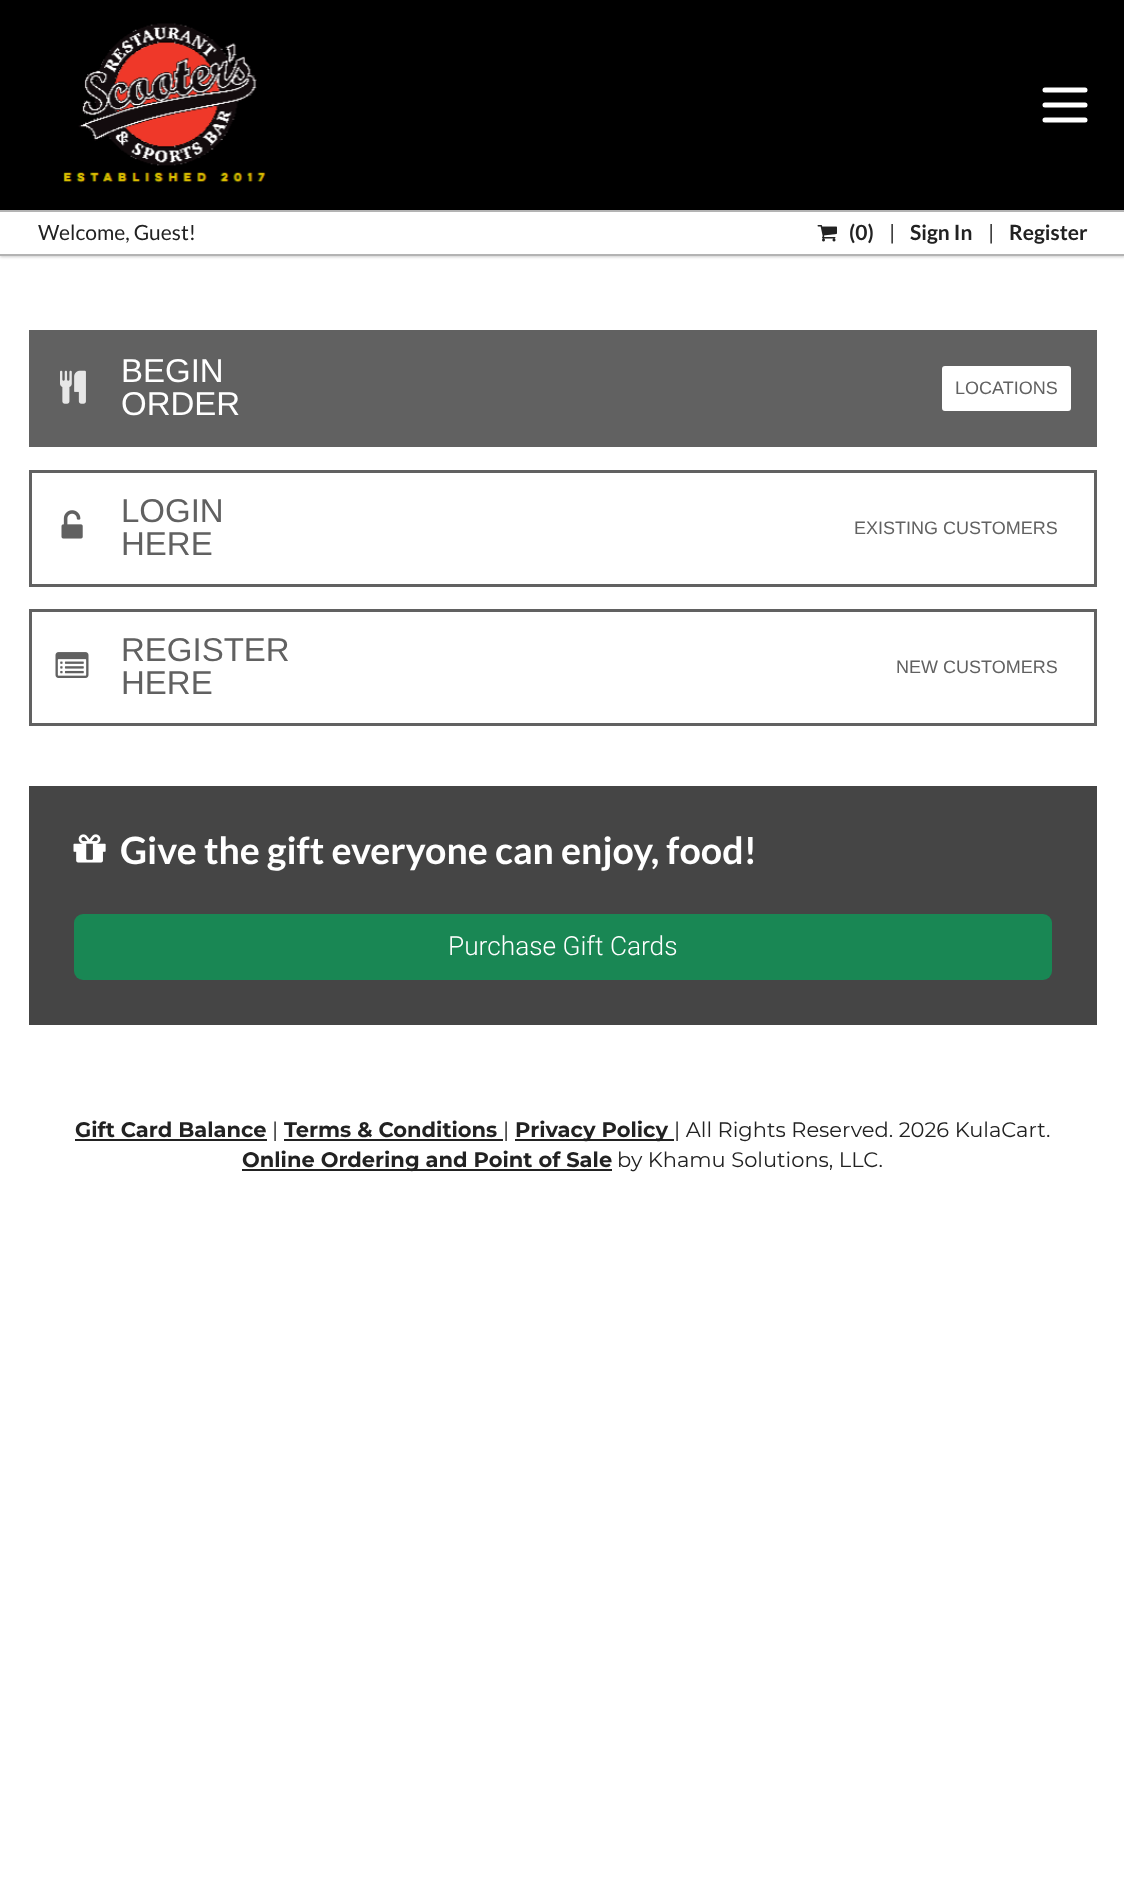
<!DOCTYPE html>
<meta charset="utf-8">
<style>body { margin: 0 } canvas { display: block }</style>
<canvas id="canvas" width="1124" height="1890"></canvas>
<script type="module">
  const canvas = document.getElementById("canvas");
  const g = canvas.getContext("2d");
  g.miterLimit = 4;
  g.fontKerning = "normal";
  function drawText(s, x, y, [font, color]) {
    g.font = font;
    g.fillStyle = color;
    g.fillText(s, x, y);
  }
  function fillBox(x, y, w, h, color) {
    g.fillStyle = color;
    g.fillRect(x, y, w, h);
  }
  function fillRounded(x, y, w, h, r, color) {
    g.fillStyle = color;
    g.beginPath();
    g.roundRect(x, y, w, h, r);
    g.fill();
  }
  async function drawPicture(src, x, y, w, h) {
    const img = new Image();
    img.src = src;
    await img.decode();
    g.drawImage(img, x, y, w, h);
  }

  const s1 = ["21px Lato", "#222222"];
  const s2 = ["bold 21px Lato", "#222222"];
  const s3 = ["33px Liberation Sans", "#FFFFFF"];
  const s4 = ["18px Liberation Sans", "#616161"];
  const s5 = ["33px Liberation Sans", "#616161"];
  const s6 = ["bold 37.5px Lato", "#FFFFFF"];
  const s7 = ["300 26.25px Roboto", "#FFFFFF"];
  const s8 = ["bold 21px Montserrat", "#222222"];
  const s9 = ["21px Montserrat", "#222222"];

  fillBox(0, 0, 1124, 1890, "#FFFFFF");
  fillBox(0, 0, 1124, 210, "#000000");
  await drawPicture("pic1.png", 63, 23, 203, 160);
  g.beginPath();
  g.moveTo(1045, 120);
  g.lineTo(1085, 120);
  g.moveTo(1045, 105);
  g.lineTo(1085, 105);
  g.moveTo(1045, 90);
  g.lineTo(1085, 90);
  g.strokeStyle = "#FFFFFF";
  g.lineWidth = 5;
  g.lineCap = "round";
  g.stroke();
  g.fillStyle = "rgba(0, 0, 0, 0.2)";
  g.filter = "blur(1.5px)";
  g.beginPath();
  g.rect(0, 212, 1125, 45);
  g.fill();
  g.filter = "none";
  fillBox(0, 212, 1124, 42, "#FFFFFF");
  fillBox(0, 210, 1124, 2, "#B3B3B3");
  fillBox(0, 254, 1124, 2, "#B3B3B3");
  drawText("Welcome, Guest!", 38, 240, s1);
  await drawPicture("pic2.png", 817, 225, 20, 17);
  drawText("(0)", 849, 240, s2);
  drawText("|", 889, 240, s1);
  drawText("Sign In", 910, 240, s2);
  drawText("|", 988, 240, s1);
  drawText("Register", 1009, 240, s2);
  fillBox(29, 330, 1068, 117, "#616161");
  await drawPicture("pic3.png", 60, 370, 26, 34);
  drawText("BEGIN", 121, 382, s3);
  drawText("ORDER", 121, 415, s3);
  g.beginPath();
  g.roundRect(943, 367, 127, 43, 2);
  g.fill();
  g.lineWidth = 2;
  g.stroke();
  drawText("LOCATIONS", 955, 394, s4);
  g.strokeStyle = "#616161";
  g.lineWidth = 3;
  g.strokeRect(30.5, 471.5, 1065, 114);
  await drawPicture("pic4.png", 61, 510, 22, 29);
  drawText("LOGIN", 121, 522, s5);
  drawText("HERE", 121, 555, s5);
  drawText("EXISTING CUSTOMERS", 854, 534, s4);
  g.strokeRect(30.5, 610.5, 1065, 114);
  await drawPicture("pic5.png", 55, 652, 34, 26);
  drawText("REGISTER", 121, 661, s5);
  drawText("HERE", 121, 694, s5);
  drawText("NEW CUSTOMERS", 896, 673, s4);
  fillBox(29, 786, 1068, 239, "#454545");
  await drawPicture("pic6.png", 73, 834, 33, 29);
  drawText("Give the gift everyone can enjoy, food!", 120, 864, s6);
  fillRounded(74, 914, 978, 66, 9, "#198754");
  drawText("Purchase Gift Cards", 448, 955, s7);
  drawText("Gift Card Balance", 75, 1137, s8);
  fillBox(75, 1139, 192, 2, "#222222");
  drawText("|", 272, 1137, s9);
  drawText("Terms & Conditions", 284, 1137, s8);
  fillBox(284, 1139, 219, 2, "#222222");
  drawText("|", 503, 1137, s9);
  fillBox(515, 1139, 159, 2, "#222222");
  drawText("Privacy Policy", 515, 1137, s8);
  drawText("| All Rights Reserved. 2026 KulaCart.", 674, 1137, s9);
  fillBox(242, 1169, 370, 2, "#222222");
  drawText("Online Ordering and Point of Sale", 242, 1167, s8);
  drawText("by Khamu Solutions, LLC.", 617, 1167, s9);
</script>
